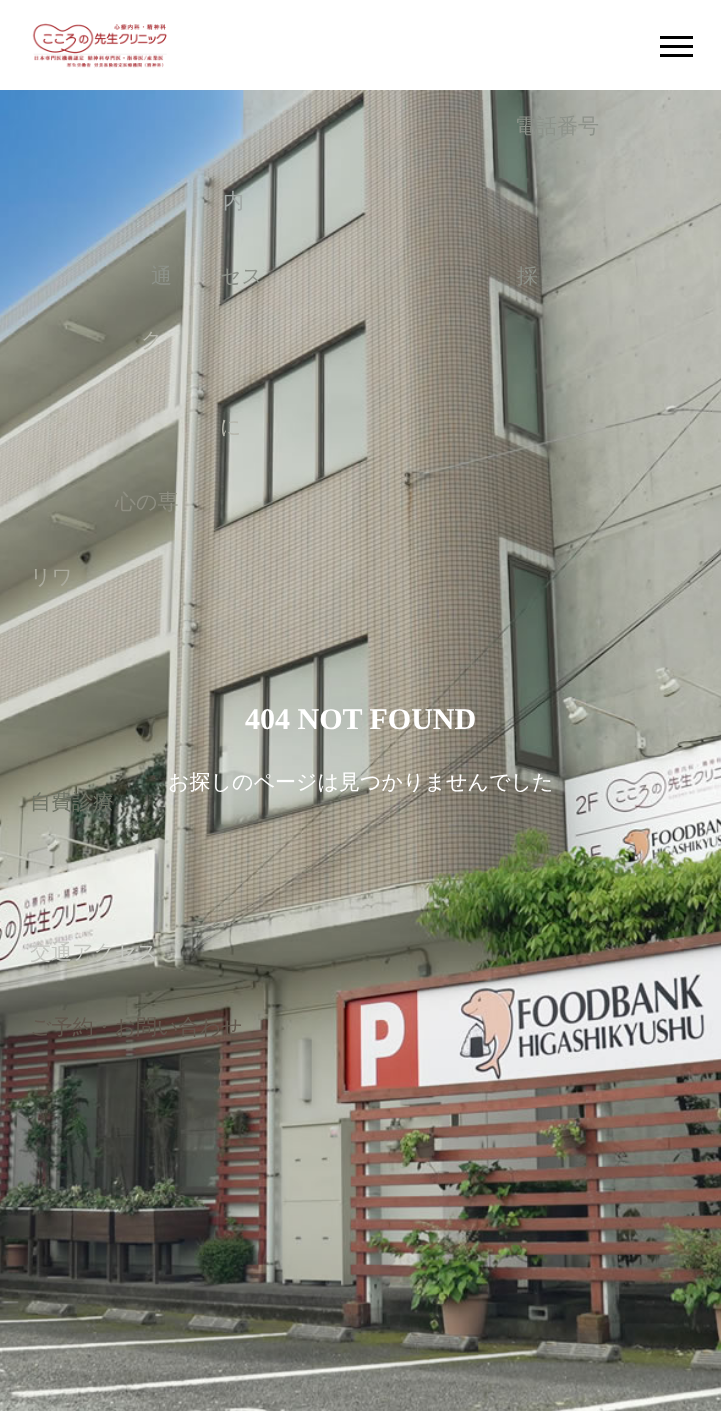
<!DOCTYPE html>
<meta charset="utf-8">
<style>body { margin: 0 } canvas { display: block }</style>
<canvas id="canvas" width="721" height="1411"></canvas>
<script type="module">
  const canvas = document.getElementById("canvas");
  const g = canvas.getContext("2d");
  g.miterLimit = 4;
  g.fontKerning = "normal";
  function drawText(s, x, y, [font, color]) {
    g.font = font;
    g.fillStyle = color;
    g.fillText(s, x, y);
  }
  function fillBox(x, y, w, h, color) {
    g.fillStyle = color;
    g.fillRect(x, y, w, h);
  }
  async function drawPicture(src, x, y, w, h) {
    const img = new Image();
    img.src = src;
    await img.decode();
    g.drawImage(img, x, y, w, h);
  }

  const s1 = ["500 21px WenQuanYi Zen Hei", "#8D928A"];
  const s2 = ["500 21px WenQuanYi Zen Hei", "#A1A7A5"];
  const s3 = ["500 21px WenQuanYi Zen Hei", "#B7B7AD"];
  const s4 = ["500 21px WenQuanYi Zen Hei", "#8E8E82"];
  const s5 = ["500 21px WenQuanYi Zen Hei", "#AAAA9D"];
  const s6 = ["500 21px WenQuanYi Zen Hei", "#6E7366"];
  const s7 = ["500 21px WenQuanYi Zen Hei", "#C4C6C0"];
  const s8 = ["500 21px WenQuanYi Zen Hei", "#61574D"];
  const s9 = ["bold 30px Liberation Serif", "#FFFFFF"];
  const s10 = ["500 21px WenQuanYi Zen Hei", "#FFFFFF"];

  fillBox(0, 0, 721, 1411, "#FFFFFF");
  await drawPicture("pic1.png", 32, 23, 135, 45);
  fillBox(660, 36, 33, 3, "#000000");
  fillBox(660, 45, 33, 3, "#000000");
  fillBox(660, 54, 33, 3, "#000000");
  await drawPicture("pic2.png", 0, 90, 721, 1321);
  drawText("電話番号", 515, 133, s1);
  drawText("内", 223, 208, s2);
  g.wordSpacing = "-1px";
  drawText("通", 151, 283, s1);
  drawText("セス", 220, 283, s1);
  g.wordSpacing = "0px";
  drawText("採", 517, 283, s1);
  drawText("ク", 141, 347, s3);
  drawText("に", 220, 434, s3);
  drawText("心の専", 115, 509, s4);
  drawText("リワ", 30, 584, s5);
  drawText("自費診療", 30, 809, s6);
  drawText("交通アクセス", 30, 959, s7);
  drawText("ご予約・お問い合わせ", 30, 1034, s8);
  drawText("404 NOT FOUND", 245, 729, s9);
  drawText("お探しのページは見つかりませんでした", 168, 789, s10);
</script>
